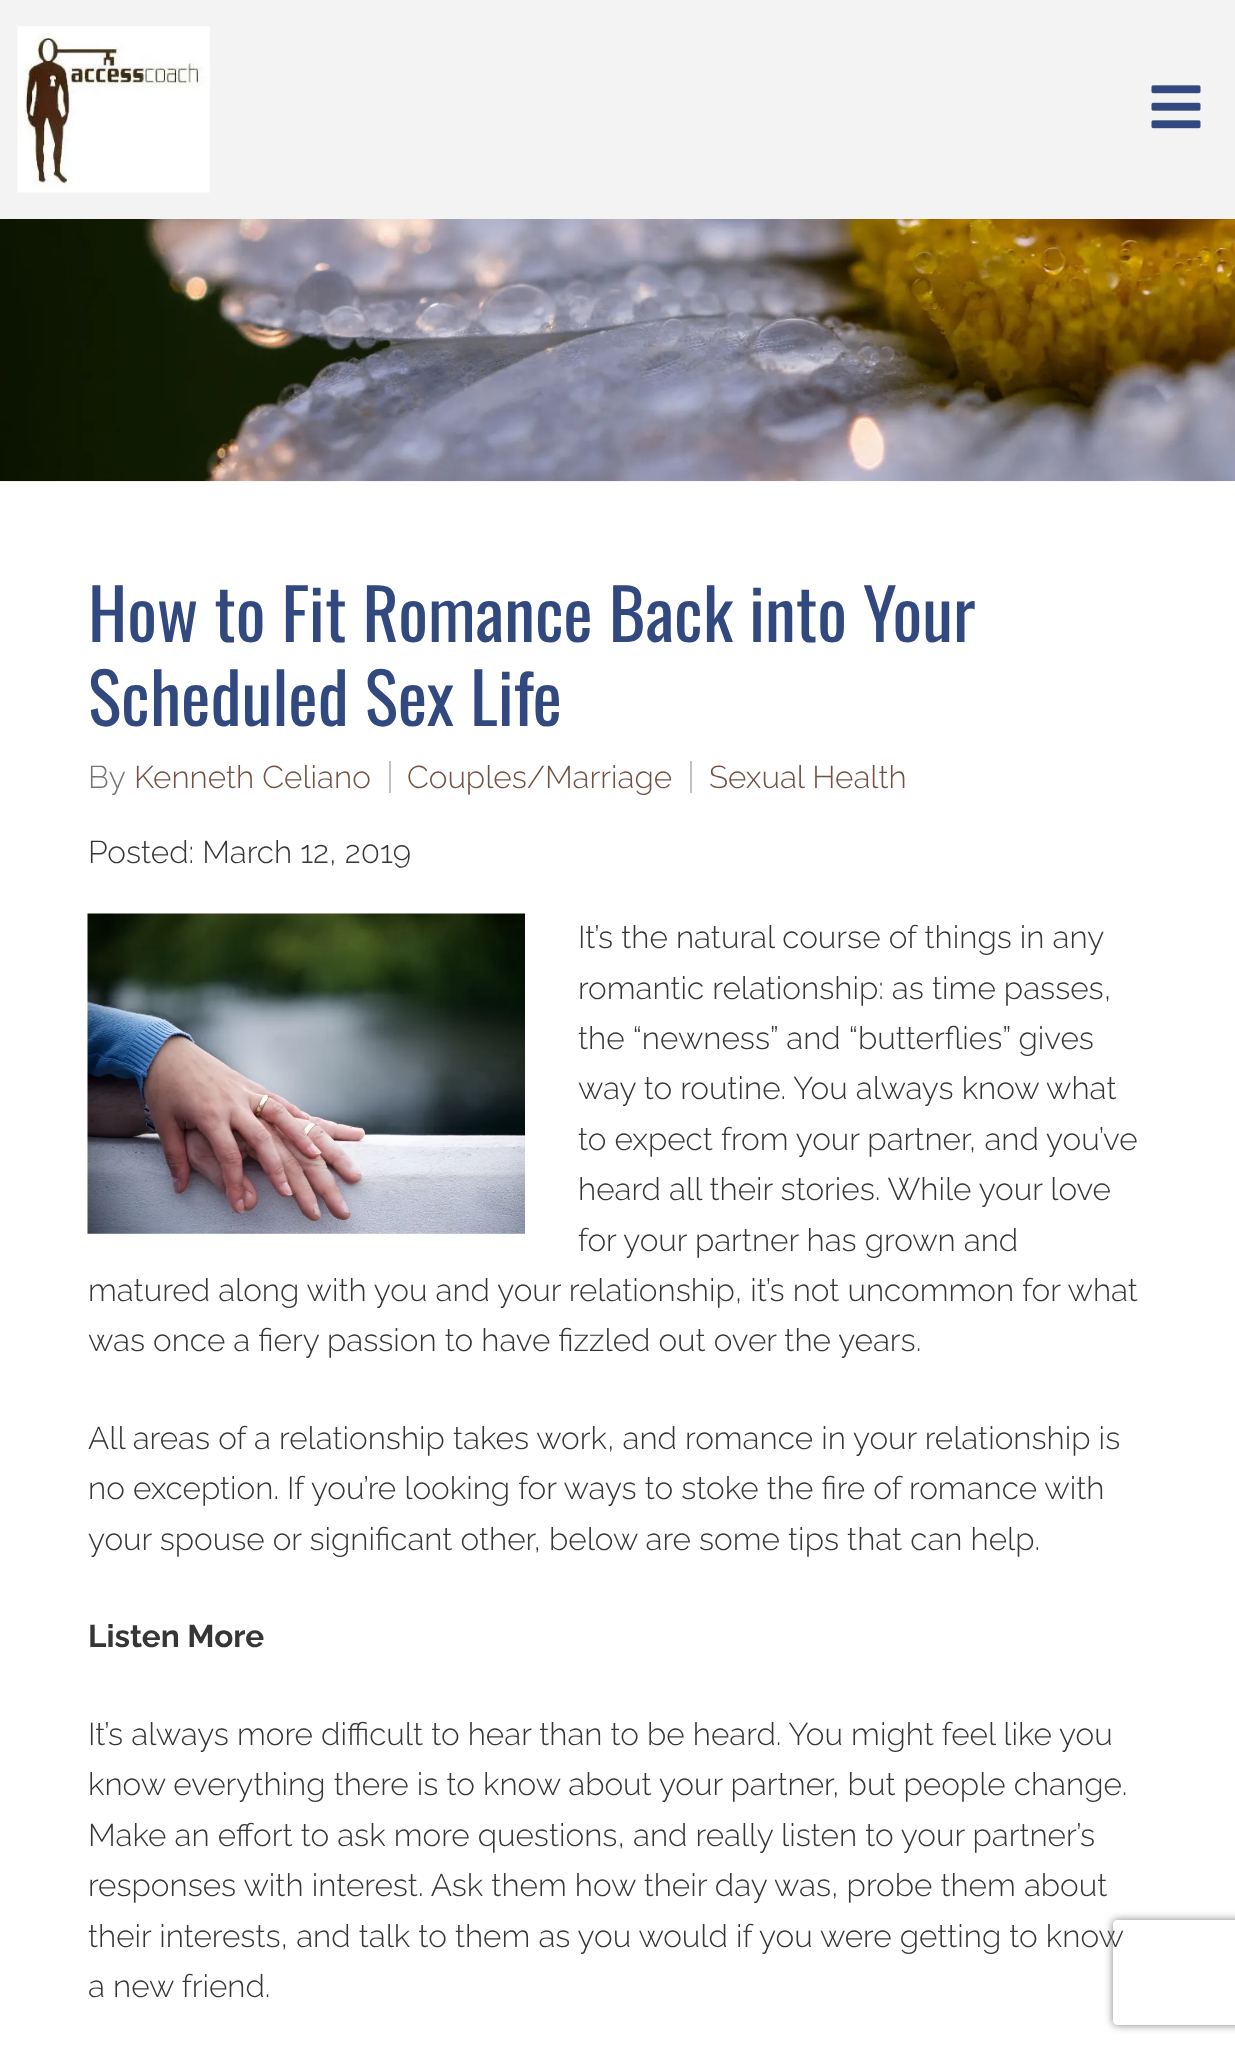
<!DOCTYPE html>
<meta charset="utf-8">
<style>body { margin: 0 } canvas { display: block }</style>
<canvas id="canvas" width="1235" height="2049"></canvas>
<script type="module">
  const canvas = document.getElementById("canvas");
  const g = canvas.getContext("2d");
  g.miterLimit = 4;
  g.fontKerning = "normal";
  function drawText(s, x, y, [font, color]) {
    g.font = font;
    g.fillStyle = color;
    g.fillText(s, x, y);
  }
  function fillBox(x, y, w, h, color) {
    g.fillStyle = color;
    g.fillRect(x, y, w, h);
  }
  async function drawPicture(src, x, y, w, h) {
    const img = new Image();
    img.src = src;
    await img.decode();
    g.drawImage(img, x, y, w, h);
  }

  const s1 = ["70px Oswald", "#32497F"];
  const s2 = ["300 31.5px Raleway", "#767676"];
  const s3 = ["300 31.5px Raleway", "#715142"];
  const s4 = ["300 31.5px Raleway", "#363636"];
  const s5 = ["bold 31.5px Raleway", "#363636"];

  fillBox(0, 0, 1235, 2049, "#FFFFFF");
  fillBox(0, 0, 1235, 219, "#F3F3F3");
  await drawPicture("pic1.png", 17, 26, 193, 167);
  await drawPicture("pic2.png", 1151, 85, 50, 44);
  await drawPicture("pic3.png", 0, 219, 1235, 263);
  drawText("How to Fit Romance Back into Your", 88, 642, s1);
  drawText("Scheduled Sex Life", 88, 726, s1);
  drawText("By", 88, 788, s2);
  drawText("Kenneth Celiano", 134, 788, s3);
  fillBox(389, 761, 2, 32, "#C2C2C2");
  drawText("Couples/Marriage", 407, 788, s3);
  fillBox(690, 761, 2, 32, "#C2C2C2");
  drawText("Sexual Health", 709, 788, s3);
  drawText("Posted: March 12, 2019", 88, 863, s4);
  await drawPicture("pic4.png", 87, 913, 438, 321);
  drawText("It’s the natural course of things in any", 578, 948, s4);
  drawText("romantic relationship: as time passes,", 578, 999, s4);
  drawText("the “newness” and “butterflies” gives", 578, 1049, s4);
  drawText("way to routine. You always know what", 578, 1099, s4);
  drawText("to expect from your partner, and you’ve", 578, 1150, s4);
  drawText("heard all their stories. While your love", 578, 1200, s4);
  drawText("for your partner has grown and", 578, 1251, s4);
  drawText("matured along with you and your relationship, it’s not uncommon for what", 88, 1301, s4);
  drawText("was once a fiery passion to have fizzled out over the years.", 88, 1351, s4);
  drawText("All areas of a relationship takes work, and romance in your relationship is", 88, 1449, s4);
  drawText("no exception. If you’re looking for ways to stoke the fire of romance with", 88, 1499, s4);
  drawText("your spouse or significant other, below are some tips that can help.", 88, 1550, s4);
  drawText("Listen More", 88, 1647, s5);
  drawText("It’s always more difficult to hear than to be heard. You might feel like you", 88, 1745, s4);
  drawText("know everything there is to know about your partner, but people change.", 88, 1795, s4);
  drawText("Make an effort to ask more questions, and really listen to your partner’s", 88, 1846, s4);
  drawText("responses with interest. Ask them how their day was, probe them about", 88, 1896, s4);
  drawText("their interests, and talk to them as you would if you were getting to know", 88, 1947, s4);
  drawText("a new friend.", 88, 1997, s4);
  g.save();
  g.beginPath();
  g.moveTo(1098, 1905);
  g.lineTo(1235, 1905);
  g.lineTo(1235, 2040);
  g.lineTo(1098, 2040);
  g.closePath();
  g.moveTo(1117, 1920);
  g.lineTo(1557, 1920);
  g.bezierCurveTo(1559, 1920, 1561, 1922, 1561, 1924);
  g.lineTo(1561, 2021);
  g.bezierCurveTo(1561, 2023, 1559, 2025, 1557, 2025);
  g.lineTo(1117, 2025);
  g.bezierCurveTo(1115, 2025, 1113, 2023, 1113, 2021);
  g.lineTo(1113, 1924);
  g.bezierCurveTo(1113, 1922, 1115, 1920, 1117, 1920);
  g.closePath();
  g.clip("evenodd");
  g.fillStyle = "#808080";
  g.filter = "blur(4.5px)";
  g.beginPath();
  g.roundRect(1113, 1920, 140, 105, 4);
  g.fill();
  g.filter = "none";
  g.restore();
</script>
